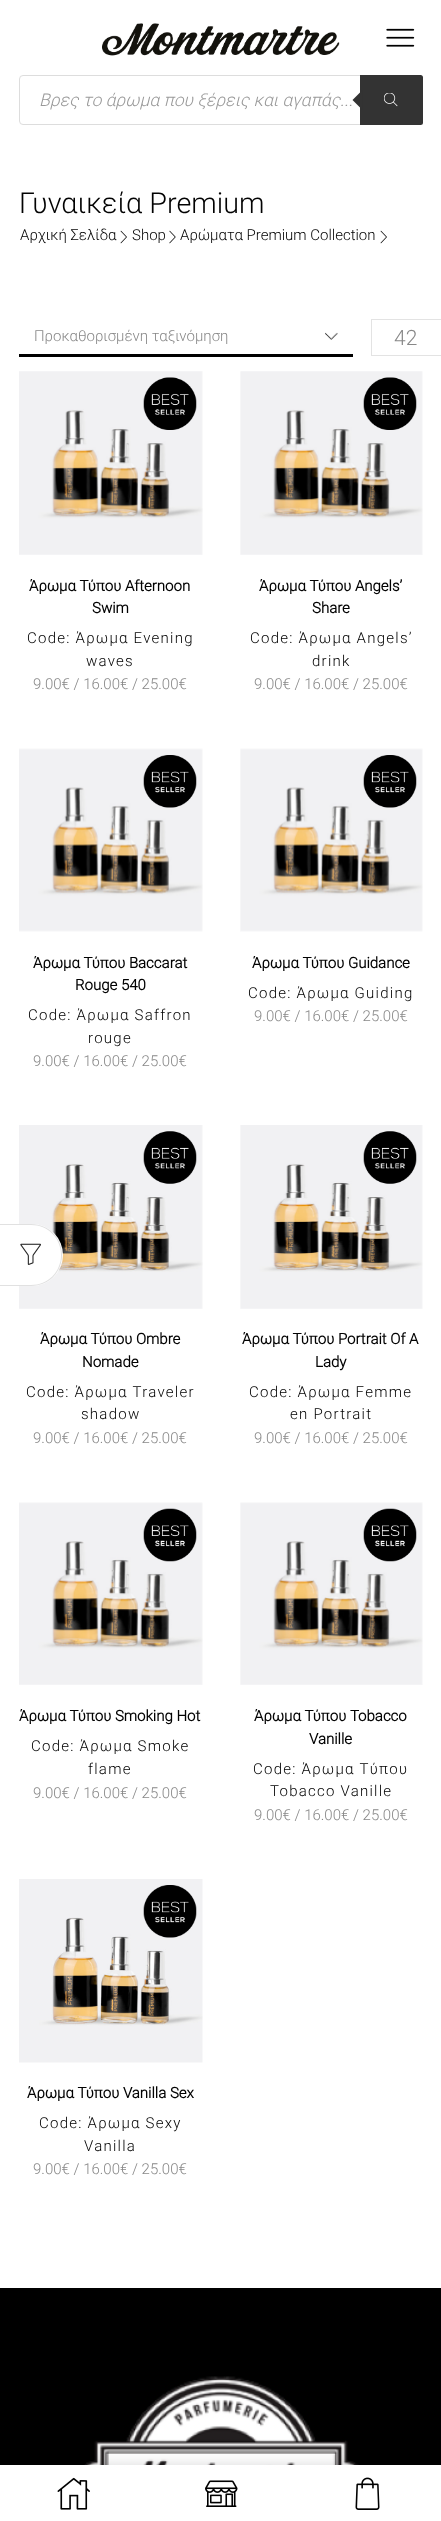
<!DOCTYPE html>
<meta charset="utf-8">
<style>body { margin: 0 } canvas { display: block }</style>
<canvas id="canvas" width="441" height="2521"></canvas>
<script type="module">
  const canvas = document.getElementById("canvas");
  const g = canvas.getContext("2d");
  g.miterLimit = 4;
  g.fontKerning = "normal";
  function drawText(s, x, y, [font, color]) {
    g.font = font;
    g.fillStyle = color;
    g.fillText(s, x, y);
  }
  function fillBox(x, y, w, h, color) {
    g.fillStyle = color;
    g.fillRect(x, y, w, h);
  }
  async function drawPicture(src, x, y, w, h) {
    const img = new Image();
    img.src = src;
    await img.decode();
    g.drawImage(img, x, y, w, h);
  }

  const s1 = ["italic 300 17.5px Roboto", "#999999"];
  const s2 = ["300 28.75px Roboto", "#020202"];
  const s3 = ["300 15px Roboto", "#020202"];
  const s4 = ["300 15px Roboto", "#888888"];
  const s5 = ["300 21px Roboto", "#888888"];
  const s6 = ["bold 15px Roboto", "#020202"];

  fillBox(0, 0, 441, 2521, "#FFFFFF");
  await drawPicture("pic1.png", 102, 23, 238, 33);
  await drawPicture("pic2.png", 386, 28, 29, 19);
  g.beginPath();
  g.roundRect(19.5, 75.5, 403, 49, 3.5);
  g.strokeStyle = "#DDDDDD";
  g.stroke();
  drawText("Βρες το άρωμα που ξέρεις και αγαπάς...", 39, 106, s1);
  g.fillStyle = "#333333";
  g.beginPath();
  g.roundRect(360, 75, 63, 50, [0, 2.5, 2.5, 0]);
  g.fill();
  g.beginPath();
  g.moveTo(362.5, 90);
  g.lineTo(362.5, 110);
  g.lineTo(352.5, 100);
  g.closePath();
  g.fill();
  await drawPicture("pic3.png", 384, 93, 14, 14);
  drawText("Γυναικεία Premium", 19, 213, s2);
  drawText("Αρχική Σελίδα", 20, 240, s3);
  await drawPicture("pic4.png", 120, 230, 7, 14);
  drawText("Shop", 132, 240, s3);
  await drawPicture("pic5.png", 169, 230, 7, 14);
  drawText("Αρώματα Premium Collection", 180, 240, s3);
  await drawPicture("pic4.png", 380, 230, 7, 14);
  await drawPicture("pic6.png", 325, 332, 13, 8);
  fillBox(19, 354, 334, 3, "#000000");
  drawText("Προκαθορισμένη ταξινόμηση", 34, 341, s4);
  g.strokeStyle = "#E3E3E3";
  g.strokeRect(371.5, 319.5, 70, 36);
  drawText("42", 394, 345, s5);
  await drawPicture("pic7.png", 19, 371, 184, 184);
  await drawPicture("pic8.png", 143, 377, 54, 53);
  drawText("Άρωμα Τύπου Afternoon", 29, 591, s6);
  drawText("Swim", 92, 613, s6);
  g.letterSpacing = "1.25px";
  drawText("Code: Άρωμα Evening", 27, 643, s3);
  drawText("waves", 86, 666, s3);
  g.letterSpacing = "0px";
  drawText("9.00€ / 16.00€ / 25.00€", 33, 689, s4);
  await drawPicture("pic9.png", 240, 371, 183, 184);
  await drawPicture("pic10.png", 363, 377, 54, 53);
  drawText("Άρωμα Τύπου Angels’", 259, 591, s6);
  drawText("Share", 312, 613, s6);
  g.letterSpacing = "1.25px";
  drawText("Code: Άρωμα Angels’", 250, 643, s3);
  drawText("drink", 312, 666, s3);
  g.letterSpacing = "0px";
  drawText("9.00€ / 16.00€ / 25.00€", 254, 689, s4);
  await drawPicture("pic11.png", 19, 748, 184, 184);
  await drawPicture("pic12.png", 143, 755, 54, 53);
  drawText("Άρωμα Τύπου Baccarat", 33, 968, s6);
  drawText("Rouge 540", 75, 990, s6);
  g.letterSpacing = "1.25px";
  drawText("Code: Άρωμα Saffron", 28, 1020, s3);
  drawText("rouge", 88, 1043, s3);
  g.letterSpacing = "0px";
  drawText("9.00€ / 16.00€ / 25.00€", 33, 1066, s4);
  await drawPicture("pic13.png", 240, 748, 183, 184);
  await drawPicture("pic14.png", 363, 755, 54, 53);
  drawText("Άρωμα Τύπου Guidance", 252, 968, s6);
  g.letterSpacing = "1.25px";
  drawText("Code: Άρωμα Guiding", 248, 998, s3);
  g.letterSpacing = "0px";
  drawText("9.00€ / 16.00€ / 25.00€", 254, 1021, s4);
  await drawPicture("pic15.png", 19, 1125, 184, 184);
  await drawPicture("pic16.png", 143, 1131, 54, 53);
  drawText("Άρωμα Τύπου Ombre", 40, 1344, s6);
  drawText("Nomade", 82, 1367, s6);
  g.letterSpacing = "1.25px";
  drawText("Code: Άρωμα Traveler", 26, 1397, s3);
  drawText("shadow", 81, 1419, s3);
  g.letterSpacing = "0px";
  drawText("9.00€ / 16.00€ / 25.00€", 33, 1443, s4);
  await drawPicture("pic17.png", 240, 1125, 183, 184);
  await drawPicture("pic18.png", 363, 1131, 54, 53);
  drawText("Άρωμα Τύπου Portrait Of A", 242, 1344, s6);
  drawText("Lady", 315, 1367, s6);
  g.letterSpacing = "1.25px";
  drawText("Code: Άρωμα Femme", 249, 1397, s3);
  drawText("en Portrait", 290, 1419, s3);
  g.letterSpacing = "0px";
  drawText("9.00€ / 16.00€ / 25.00€", 254, 1443, s4);
  await drawPicture("pic19.png", 19, 1502, 184, 183);
  await drawPicture("pic20.png", 143, 1508, 54, 54);
  drawText("Άρωμα Τύπου Smoking Hot", 19, 1721, s6);
  g.letterSpacing = "1.25px";
  drawText("Code: Άρωμα Smoke", 31, 1751, s3);
  drawText("flame", 88, 1774, s3);
  g.letterSpacing = "0px";
  drawText("9.00€ / 16.00€ / 25.00€", 33, 1798, s4);
  await drawPicture("pic21.png", 240, 1502, 183, 183);
  await drawPicture("pic22.png", 363, 1508, 54, 54);
  drawText("Άρωμα Τύπου Tobacco", 254, 1721, s6);
  drawText("Vanille", 309, 1744, s6);
  g.letterSpacing = "1.25px";
  drawText("Code: Άρωμα Τύπου", 253, 1774, s3);
  drawText("Tobacco Vanille", 270, 1796, s3);
  g.letterSpacing = "0px";
  drawText("9.00€ / 16.00€ / 25.00€", 254, 1820, s4);
  await drawPicture("pic23.png", 19, 1879, 184, 184);
  await drawPicture("pic12.png", 143, 1885, 54, 53);
  drawText("Άρωμα Τύπου Vanilla Sex", 27, 2098, s6);
  g.letterSpacing = "1.25px";
  drawText("Code: Άρωμα Sexy", 39, 2128, s3);
  drawText("Vanilla", 84, 2151, s3);
  g.letterSpacing = "0px";
  drawText("9.00€ / 16.00€ / 25.00€", 33, 2174, s4);
  fillBox(0, 2288, 441, 177, "#000000");
  await drawPicture("pic24.png", 84, 2376, 275, 89);
  g.fillStyle = "rgba(0, 0, 0, 0.15)";
  g.filter = "blur(7.5px)";
  g.beginPath();
  g.rect(3, 2465, 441, 56);
  g.fill();
  g.filter = "none";
  fillBox(0, 2465, 441, 56, "#FFFFFF");
  await drawPicture("pic25.png", 57, 2477, 33, 33);
  await drawPicture("pic26.png", 205, 2480, 33, 27);
  await drawPicture("pic27.png", 355, 2477, 25, 33);
  g.beginPath();
  g.roundRect(0, 1224, 63, 62, [0, 31, 31, 0]);
  g.fill();
  g.fillStyle = "#E1E1E1";
  g.beginPath();
  g.moveTo(0, 1224);
  g.lineTo(31, 1224);
  g.bezierCurveTo(49, 1224, 62, 1238, 62, 1255);
  g.bezierCurveTo(62, 1272, 49, 1286, 31, 1286);
  g.lineTo(0, 1286);
  g.closePath();
  g.moveTo(0, 1225);
  g.lineTo(31, 1225);
  g.bezierCurveTo(48, 1225, 61, 1238, 61, 1255);
  g.bezierCurveTo(61, 1272, 48, 1285, 31, 1285);
  g.lineTo(0, 1285);
  g.closePath();
  g.fill("evenodd");
  await drawPicture("pic28.png", 20, 1243, 21, 22);
</script>
